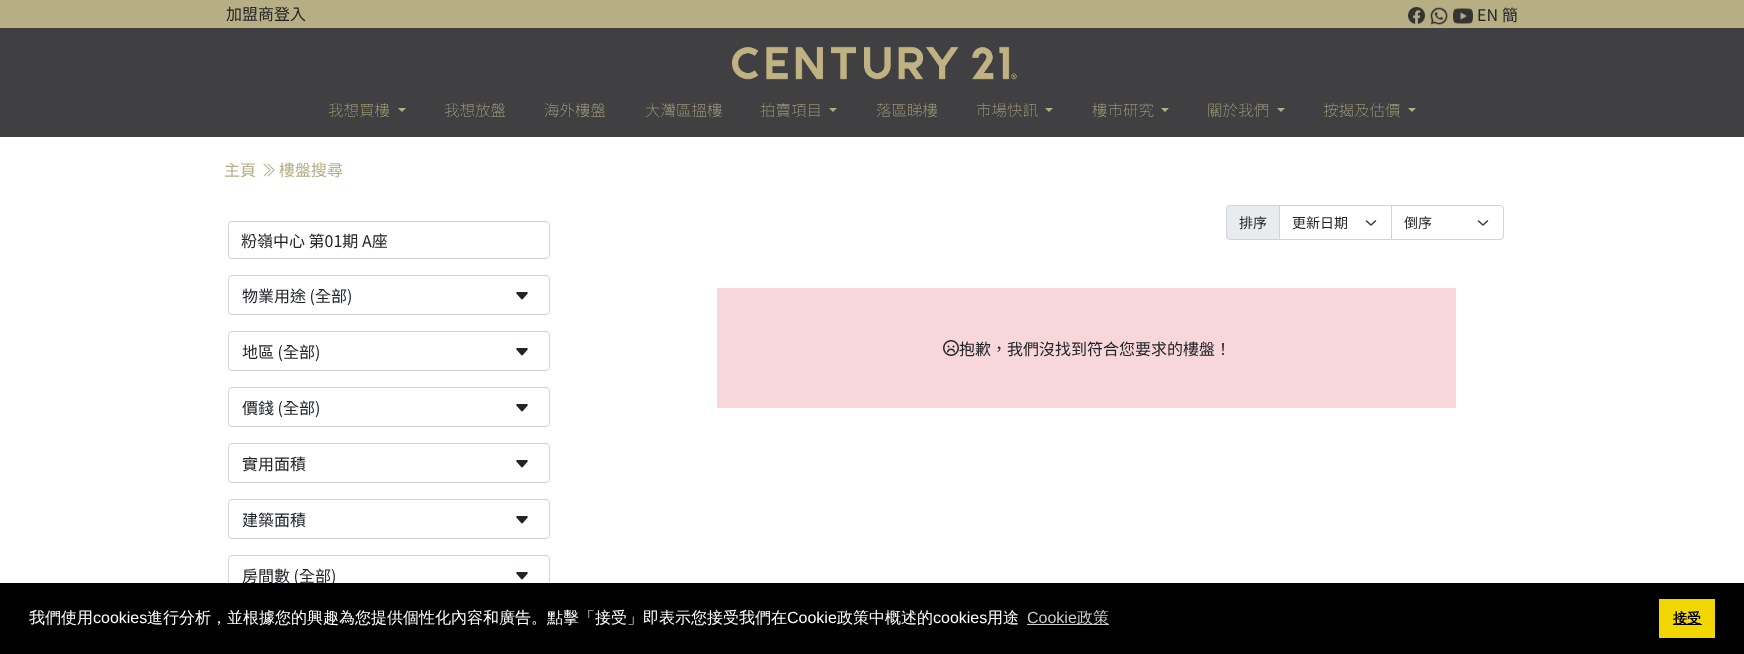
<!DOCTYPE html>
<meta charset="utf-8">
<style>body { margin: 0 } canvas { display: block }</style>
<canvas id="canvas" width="1744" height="654"></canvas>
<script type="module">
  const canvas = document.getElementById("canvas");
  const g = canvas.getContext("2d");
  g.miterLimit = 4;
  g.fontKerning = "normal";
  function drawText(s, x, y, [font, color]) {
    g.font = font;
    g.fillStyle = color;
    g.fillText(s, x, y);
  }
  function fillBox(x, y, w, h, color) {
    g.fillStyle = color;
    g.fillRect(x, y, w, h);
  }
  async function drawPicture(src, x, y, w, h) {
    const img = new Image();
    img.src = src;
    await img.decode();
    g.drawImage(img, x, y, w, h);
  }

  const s1 = ["16px Noto Sans TC", "#212529"];
  const s2 = ["100 15.5px Noto Sans TC", "#B7AE83"];
  const s3 = ["16px Noto Sans TC", "#B7AE83"];
  const s4 = ["14px Noto Sans TC", "#212529"];
  const s5 = ["500 16px WenQuanYi Zen Hei", "#FFFFFF"];
  const s6 = ["16px Liberation Sans", "#FFFFFF"];
  const s7 = ["16px Liberation Sans", "#CCCCCC"];
  const s8 = ["500 16px WenQuanYi Zen Hei", "#CCCCCC"];
  const s9 = ["bold 14px WenQuanYi Zen Hei", "#000000"];

  fillBox(0, 0, 1744, 654, "#FFFFFF");
  fillBox(0, 0, 1744, 28, "#B7AE83");
  drawText("加盟商登入", 226, 20, s1);
  await drawPicture("pic1.png", 1408, 7, 17, 17);
  await drawPicture("pic2.png", 1430, 7, 18, 18);
  await drawPicture("pic3.png", 1453, 8, 20, 16);
  drawText("EN", 1477, 21, s1);
  drawText("簡", 1502, 21, s1);
  fillBox(0, 28, 1744, 109, "#404042");
  await drawPicture("pic4.png", 731, 46, 286, 34);
  drawText("我想買樓", 328, 116, s2);
  g.beginPath();
  g.moveTo(398, 108);
  g.lineTo(406, 108);
  g.lineTo(402, 112);
  g.closePath();
  g.fill();
  drawText("我想放盤", 444, 116, s2);
  drawText("海外樓盤", 544, 116, s2);
  drawText("大灣區搵樓", 645, 116, s2);
  drawText("拍賣項目", 760, 116, s2);
  g.beginPath();
  g.moveTo(829, 108);
  g.lineTo(837, 108);
  g.lineTo(833, 112);
  g.closePath();
  g.fill();
  drawText("落區睇樓", 876, 116, s2);
  drawText("市場快訊", 976, 116, s2);
  g.beginPath();
  g.moveTo(1045, 108);
  g.lineTo(1053, 108);
  g.lineTo(1049, 112);
  g.closePath();
  g.fill();
  drawText("樓巿研究", 1092, 116, s2);
  g.beginPath();
  g.moveTo(1161, 108);
  g.lineTo(1169, 108);
  g.lineTo(1165, 112);
  g.closePath();
  g.fill();
  drawText("關於我們", 1207, 116, s2);
  g.beginPath();
  g.moveTo(1277, 108);
  g.lineTo(1285, 108);
  g.lineTo(1281, 112);
  g.closePath();
  g.fill();
  drawText("按揭及估價", 1323, 116, s2);
  g.beginPath();
  g.moveTo(1408, 108);
  g.lineTo(1416, 108);
  g.lineTo(1412, 112);
  g.closePath();
  g.fill();
  drawText("主頁", 224, 176, s3);
  await drawPicture("pic5.png", 263, 163, 12, 14);
  drawText("樓盤搜尋", 279, 176, s3);
  g.beginPath();
  g.roundRect(228.5, 221.5, 321, 37, 3.5);
  g.strokeStyle = "#CED4DA";
  g.stroke();
  drawText("粉嶺中心 第01期 A座", 241, 247, s1);
  g.beginPath();
  g.roundRect(228.5, 275.5, 321, 39, 3.5);
  g.strokeStyle = "#D3D3D3";
  g.stroke();
  drawText("物業用途 (全部)", 242, 302, s1);
  await drawPicture("pic6.png", 516, 292, 12, 8);
  g.beginPath();
  g.roundRect(228.5, 331.5, 321, 39, 3.5);
  g.stroke();
  drawText("地區 (全部)", 242, 358, s1);
  await drawPicture("pic6.png", 516, 348, 12, 8);
  g.beginPath();
  g.roundRect(228.5, 387.5, 321, 39, 3.5);
  g.stroke();
  drawText("價錢 (全部)", 242, 414, s1);
  await drawPicture("pic6.png", 516, 404, 12, 8);
  g.beginPath();
  g.roundRect(228.5, 443.5, 321, 39, 3.5);
  g.stroke();
  drawText("實用面積", 242, 470, s1);
  await drawPicture("pic6.png", 516, 460, 12, 8);
  g.beginPath();
  g.roundRect(228.5, 499.5, 321, 39, 3.5);
  g.stroke();
  drawText("建築面積", 242, 526, s1);
  await drawPicture("pic6.png", 516, 516, 12, 8);
  g.beginPath();
  g.roundRect(228.5, 555.5, 321, 39, 3.5);
  g.stroke();
  drawText("房間數 (全部)", 242, 582, s1);
  await drawPicture("pic6.png", 516, 572, 12, 8);
  g.fillStyle = "#E9ECEF";
  g.beginPath();
  g.roundRect(1226.5, 205.5, 53, 34, [3.5, 0, 0, 3.5]);
  g.fill();
  g.strokeStyle = "#CED4DA";
  g.stroke();
  drawText("排序", 1239, 228, s4);
  g.beginPath();
  g.moveTo(1366.5, 221);
  g.lineTo(1371, 225);
  g.lineTo(1375.5, 221);
  g.strokeStyle = "#343A40";
  g.lineWidth = 1.5;
  g.lineCap = "round";
  g.lineJoin = "round";
  g.stroke();
  g.strokeStyle = "#CED4DA";
  g.lineWidth = 1;
  g.lineJoin = "miter";
  g.strokeRect(1279.5, 205.5, 112, 34);
  drawText("更新日期", 1292, 228, s4);
  g.fillStyle = "#FFFFFF";
  g.beginPath();
  g.roundRect(1391, 205, 113, 35, [0, 4, 4, 0]);
  g.fill();
  g.beginPath();
  g.moveTo(1478.5, 221);
  g.lineTo(1483, 225);
  g.lineTo(1487.5, 221);
  g.strokeStyle = "#343A40";
  g.lineWidth = 1.5;
  g.lineJoin = "round";
  g.stroke();
  g.beginPath();
  g.roundRect(1391.5, 205.5, 112, 34, [0, 3.5, 3.5, 0]);
  g.strokeStyle = "#CED4DA";
  g.lineWidth = 1;
  g.lineJoin = "miter";
  g.stroke();
  drawText("倒序", 1404, 228, s4);
  fillBox(717, 288, 739, 120, "#F8D7DA");
  await drawPicture("pic7.png", 943, 340, 16, 16);
  drawText("抱歉，我們沒找到符合您要求的樓盤！", 959, 355, s1);
  fillBox(0, 583, 1744, 71, "#000000");
  drawText("我們使用", 29, 623, s5);
  drawText("cookies", 93, 623, s6);
  drawText("進行分析，並根據您的興趣為您提供個性化內容和廣告。點擊「接受」即表示您接受我們在", 147, 623, s5);
  drawText("Cookie", 787, 623, s6);
  drawText("政策中概述的", 837, 623, s5);
  drawText("cookies", 933, 623, s6);
  drawText("用途", 987, 623, s5);
  drawText("Cookie", 1027, 623, s7);
  fillBox(1027, 624, 82, 1, "#CCCCCC");
  drawText("政策", 1077, 623, s8);
  fillBox(1659, 599, 56, 39, "#F1D600");
  fillBox(1673, 624, 29, 1, "#000000");
  drawText("接受", 1673, 623, s9);
</script>
